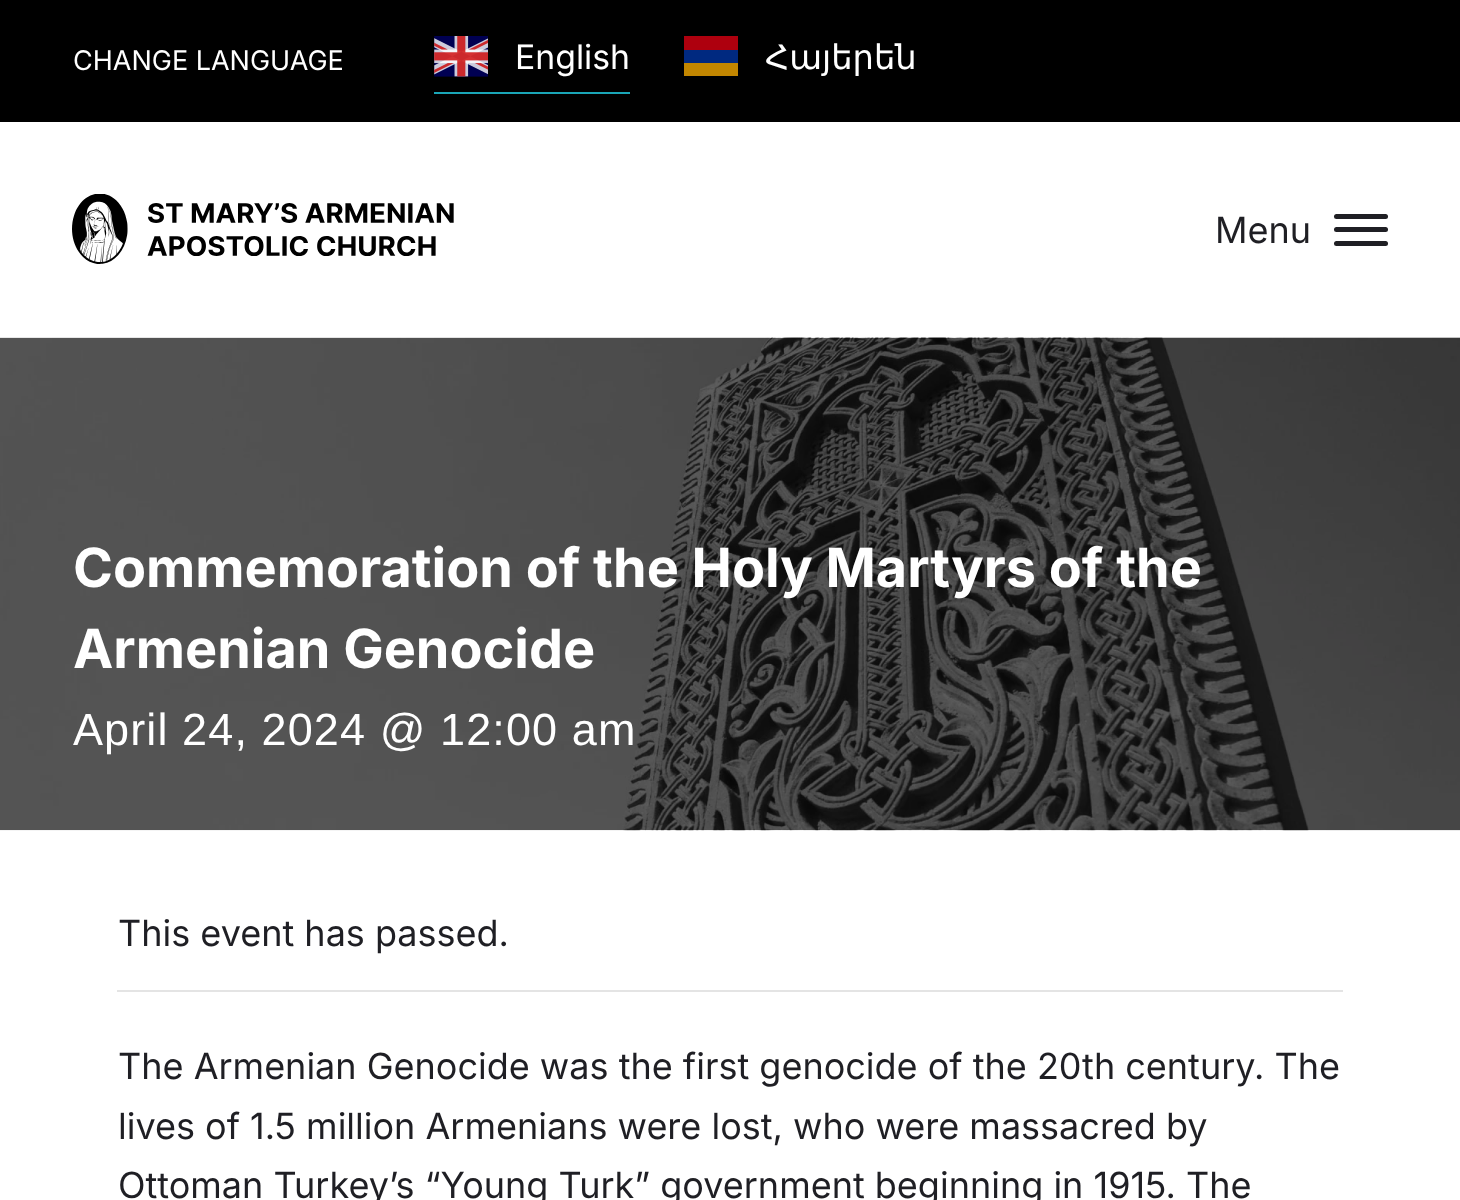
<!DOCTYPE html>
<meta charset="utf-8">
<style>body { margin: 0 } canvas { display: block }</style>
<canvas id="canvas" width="1460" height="1200"></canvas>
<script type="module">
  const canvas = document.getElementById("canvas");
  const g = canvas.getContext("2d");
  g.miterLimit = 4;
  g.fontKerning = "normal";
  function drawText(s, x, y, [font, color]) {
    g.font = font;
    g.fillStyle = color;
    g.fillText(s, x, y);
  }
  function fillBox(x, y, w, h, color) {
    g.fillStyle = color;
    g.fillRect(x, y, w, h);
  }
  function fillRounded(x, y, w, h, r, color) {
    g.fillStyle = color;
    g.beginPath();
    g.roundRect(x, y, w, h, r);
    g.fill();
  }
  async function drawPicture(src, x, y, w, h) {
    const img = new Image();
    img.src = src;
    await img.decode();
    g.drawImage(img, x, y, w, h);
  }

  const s1 = ["27px Inter", "#FFFFFF"];
  const s2 = ["33.75px Inter", "#FFFFFF"];
  const s3 = ["33.75px DejaVu Sans", "#FFFFFF"];
  const s4 = ["36px Inter", "#1F1F24"];
  const s5 = ["bold 54px Inter", "#FFFFFF"];
  const s6 = ["45px Liberation Sans", "#FFFFFF"];

  fillBox(0, 0, 1460, 1200, "#FFFFFF");
  fillBox(0, 0, 1460, 122, "#000000");
  drawText("CHANGE LANGUAGE", 73, 70, s1);
  fillBox(434, 92, 196, 2, "#1AA6B7");
  await drawPicture("pic1.png", 434, 36, 54, 41);
  drawText("English", 515, 69, s2);
  fillBox(684, 63, 54, 13, "#C28600");
  fillBox(684, 50, 54, 13, "#002980");
  fillBox(684, 36, 54, 14, "#AE000E");
  drawText("Հայերեն", 765, 69, s3);
  await drawPicture("pic2.png", 72, 194, 382, 70);
  drawText("Menu", 1215, 243, s4);
  fillRounded(1334, 227, 54, 5, 2.5, "#1F1F24");
  fillRounded(1334, 214, 54, 5, 2.5, "#1F1F24");
  fillRounded(1334, 241, 54, 5, 2.5, "#1F1F24");
  await drawPicture("pic3.png", 0, 337, 1460, 494);
  drawText("Commemoration of the Holy Martyrs of the", 73, 587, s5);
  drawText("Armenian Genocide", 73, 668, s5);
  g.letterSpacing = "1.1px";
  drawText("April 24, 2024 @ 12:00 am", 73, 745, s6);
  fillBox(117, 990, 1226, 2, "#E4E4E4");
  g.letterSpacing = "0px";
  drawText("This event has passed.", 118, 946, s4);
  drawText("The Armenian Genocide was the first genocide of the 20th century. The", 118, 1079, s4);
  drawText("lives of 1.5 million Armenians were lost, who were massacred by", 118, 1139, s4);
  drawText("Ottoman Turkey’s “Young Turk” government beginning in 1915. The", 118, 1198, s4);
</script>
